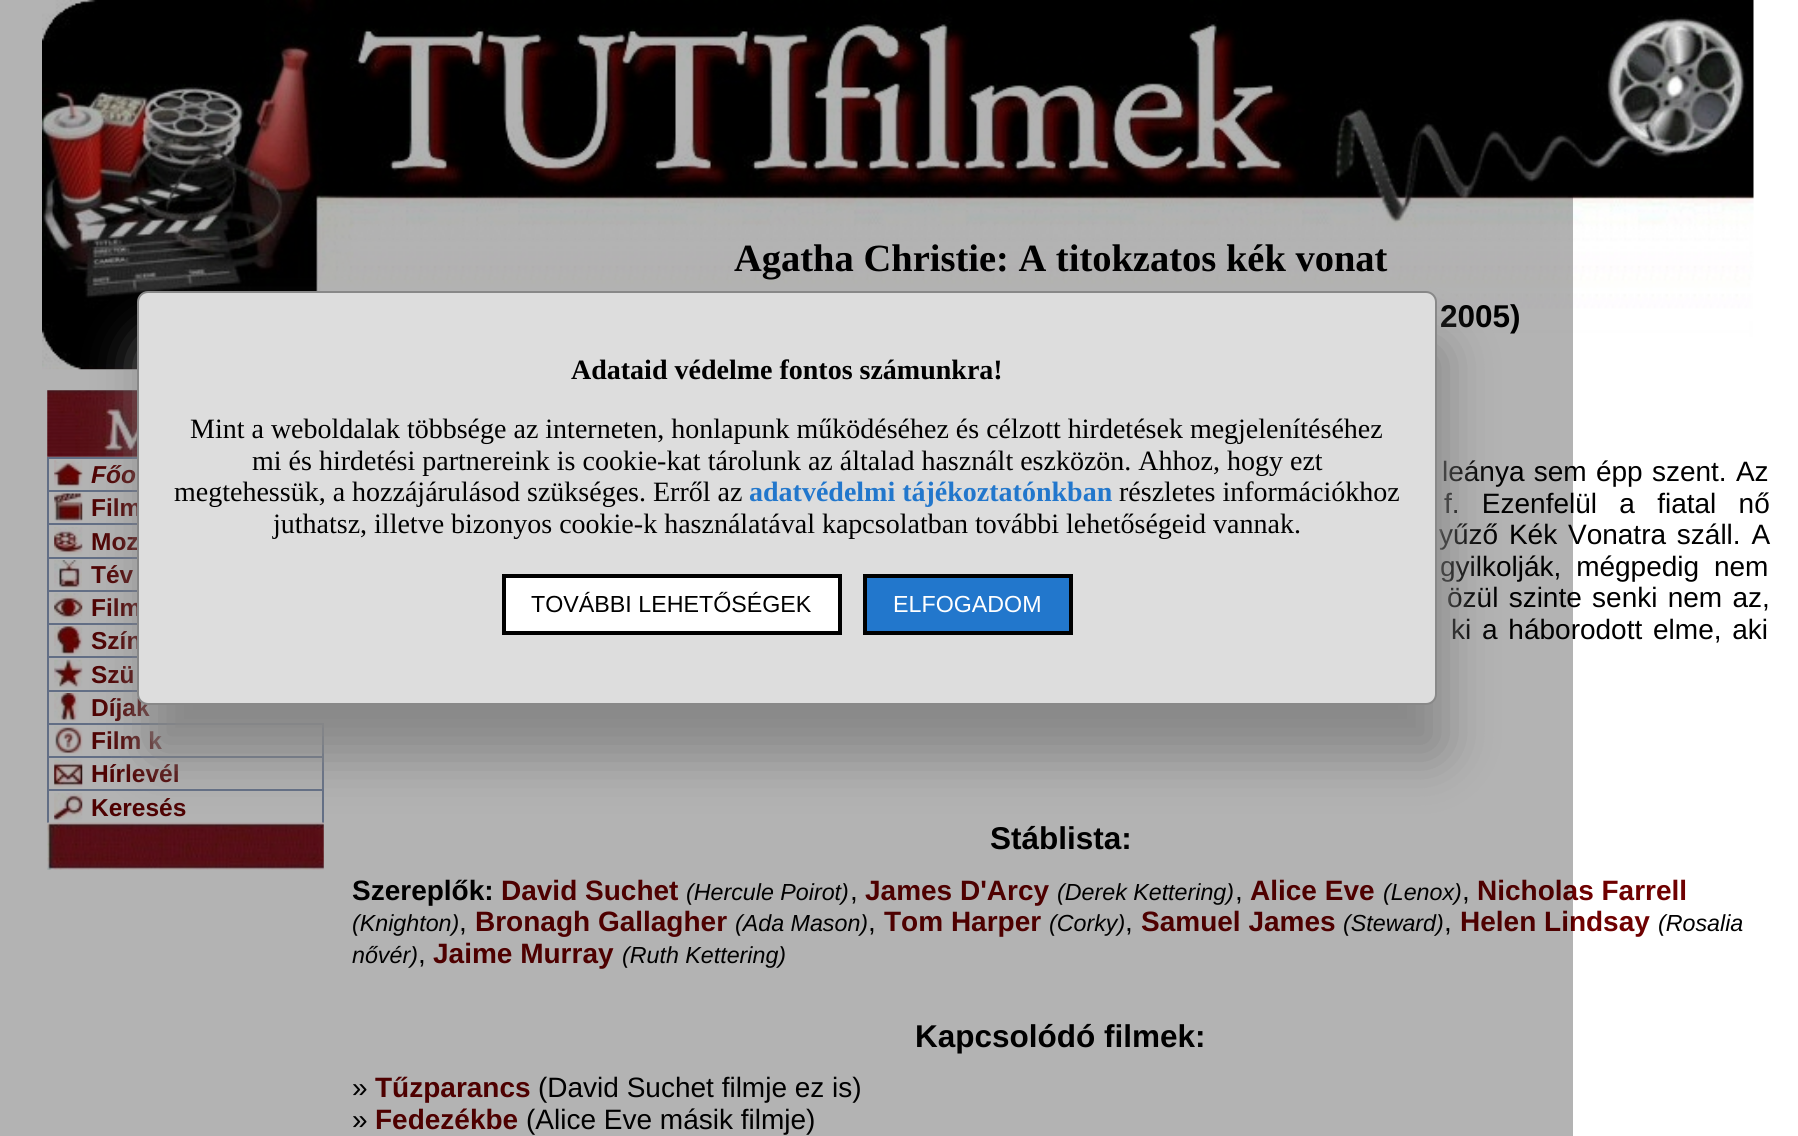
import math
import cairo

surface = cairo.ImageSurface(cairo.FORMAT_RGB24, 1798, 1136)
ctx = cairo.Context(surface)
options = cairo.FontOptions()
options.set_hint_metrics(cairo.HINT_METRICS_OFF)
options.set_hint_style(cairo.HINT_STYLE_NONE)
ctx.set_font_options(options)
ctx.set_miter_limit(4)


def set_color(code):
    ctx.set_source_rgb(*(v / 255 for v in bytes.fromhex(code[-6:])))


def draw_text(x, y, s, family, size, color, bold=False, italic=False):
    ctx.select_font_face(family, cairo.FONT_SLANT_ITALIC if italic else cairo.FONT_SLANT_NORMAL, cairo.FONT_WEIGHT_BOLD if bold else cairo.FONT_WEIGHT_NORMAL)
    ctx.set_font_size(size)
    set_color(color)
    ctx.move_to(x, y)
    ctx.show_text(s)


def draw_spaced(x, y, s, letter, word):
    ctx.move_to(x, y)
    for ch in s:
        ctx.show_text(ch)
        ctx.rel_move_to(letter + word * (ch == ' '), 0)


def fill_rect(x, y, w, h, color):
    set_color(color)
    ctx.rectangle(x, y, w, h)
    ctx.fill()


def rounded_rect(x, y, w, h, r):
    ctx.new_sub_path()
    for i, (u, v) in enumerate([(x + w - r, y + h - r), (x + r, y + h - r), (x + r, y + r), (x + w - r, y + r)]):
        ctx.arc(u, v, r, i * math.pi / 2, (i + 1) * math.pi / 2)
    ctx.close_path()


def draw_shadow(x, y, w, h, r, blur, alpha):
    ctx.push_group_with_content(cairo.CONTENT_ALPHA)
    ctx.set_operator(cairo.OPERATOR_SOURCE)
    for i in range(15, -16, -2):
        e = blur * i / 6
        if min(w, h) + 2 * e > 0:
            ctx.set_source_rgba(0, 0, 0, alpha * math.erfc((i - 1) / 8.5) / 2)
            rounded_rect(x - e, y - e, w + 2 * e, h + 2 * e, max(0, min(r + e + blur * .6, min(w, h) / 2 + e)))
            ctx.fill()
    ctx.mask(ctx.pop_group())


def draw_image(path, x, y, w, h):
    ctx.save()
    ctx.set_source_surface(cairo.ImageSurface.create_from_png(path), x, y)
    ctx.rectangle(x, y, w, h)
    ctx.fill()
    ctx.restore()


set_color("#ffffff")
ctx.paint()
draw_image("assets/img1.png", 42, 0, 1712, 370)
draw_image("assets/img2.png", 47, 390, 90, 67)
fill_rect(47, 457, 90, 2, "#8c9cbe")
fill_rect(47, 457, 2, 33, "#8c9cbe")
draw_image("assets/img3.png", 54, 460, 29, 28)
draw_text(91, 483, "Főo", "Liberation Sans", 24.5, "#6f0000", bold=True, italic=True)
fill_rect(47, 490, 90, 2, "#8c9cbe")
fill_rect(47, 490, 2, 33, "#8c9cbe")
draw_image("assets/img4.png", 54, 493, 29, 29)
draw_text(91, 516, "Film", "Liberation Sans", 24.5, "#6f0000", bold=True)
fill_rect(47, 523, 90, 2, "#8c9cbe")
fill_rect(47, 523, 2, 34, "#8c9cbe")
draw_image("assets/img5.png", 54, 527, 29, 28)
draw_text(91, 550, "Moz", "Liberation Sans", 24.5, "#6f0000", bold=True)
fill_rect(47, 557, 90, 2, "#8c9cbe")
fill_rect(47, 557, 2, 33, "#8c9cbe")
draw_image("assets/img6.png", 54, 560, 28, 28)
draw_text(91, 583, "Tév", "Liberation Sans", 24.5, "#6f0000", bold=True)
fill_rect(47, 590, 90, 2, "#8c9cbe")
fill_rect(47, 590, 2, 33, "#8c9cbe")
draw_image("assets/img7.png", 54, 593, 29, 28)
draw_text(91, 616, "Film", "Liberation Sans", 24.5, "#6f0000", bold=True)
fill_rect(47, 623, 90, 2, "#8c9cbe")
fill_rect(47, 623, 2, 33, "#8c9cbe")
draw_image("assets/img8.png", 54, 626, 29, 29)
draw_text(91, 649, "Szín", "Liberation Sans", 24.5, "#6f0000", bold=True)
fill_rect(47, 656, 90, 2, "#8c9cbe")
fill_rect(47, 656, 2, 34, "#8c9cbe")
draw_image("assets/img9.png", 54, 659, 29, 29)
draw_text(91, 683, "Szü", "Liberation Sans", 24.5, "#6f0000", bold=True)
fill_rect(47, 690, 90, 2, "#8c9cbe")
fill_rect(47, 690, 2, 33, "#8c9cbe")
draw_image("assets/img10.png", 54, 693, 25, 28)
draw_text(91, 716, "Díjak", "Liberation Sans", 24.5, "#6f0000", bold=True)
fill_rect(47, 723, 277, 2, "#8c9cbe")
fill_rect(322, 723, 2, 33, "#8c9cbe")
fill_rect(47, 723, 2, 33, "#8c9cbe")
draw_image("assets/img11.png", 54, 726, 29, 28)
draw_text(91, 749, "Film k", "Liberation Sans", 24.5, "#6f0000", bold=True)
fill_rect(47, 756, 277, 2, "#8c9cbe")
fill_rect(322, 756, 2, 33, "#8c9cbe")
fill_rect(47, 756, 2, 33, "#8c9cbe")
draw_image("assets/img12.png", 54, 759, 29, 29)
draw_text(91, 782, "Hírlevél", "Liberation Sans", 24.5, "#6f0000", bold=True)
fill_rect(47, 789, 277, 2, "#8c9cbe")
fill_rect(322, 789, 2, 34, "#8c9cbe")
fill_rect(47, 789, 2, 34, "#8c9cbe")
draw_image("assets/img13.png", 54, 793, 29, 28)
draw_text(91, 816, "Keresés", "Liberation Sans", 24.5, "#6f0000", bold=True)
draw_image("assets/img14.png", 47, 822, 277, 48)
draw_text(734, 271, "Agatha Christie: A titokzatos kék vonat", "Liberation Serif", 38.5, "#000000", bold=True)
draw_text(1440, 327, "2005)", "Liberation Sans", 31.5, "#000000", bold=True)
ctx.select_font_face("Liberation Sans")
ctx.set_font_size(28)
draw_spaced(1442, 481, "leánya sem épp szent. Az", 0, 1.5)
draw_spaced(1444, 513, "f. Ezenfelül a fiatal nő", 0, 14.5)
draw_spaced(1439, 544, "yűző Kék Vonatra száll. A", 0, 3)
draw_spaced(1440, 576, "gyilkolják, mégpedig nem", 0, 7)
draw_spaced(1447, 607, "özül szinte senki nem az,", 0, 2.5)
draw_spaced(1451, 639, "ki a háborodott elme, aki", 0, 3)
draw_text(990, 849, "Stáblista:", "Liberation Sans", 31.5, "#000000", bold=True)
draw_text(352, 900, "Szereplők:", "Liberation Sans", 28, "#000000", bold=True)
draw_text(501, 900, "David Suchet", "Liberation Sans", 28, "#6f0000", bold=True)
draw_text(686, 900, "(Hercule Poirot)", "Liberation Sans", 23.25, "#000000", italic=True)
draw_text(850, 900, ",", "Liberation Sans", 28, "#000000")
draw_text(865, 900, "James D'Arcy", "Liberation Sans", 28, "#6f0000", bold=True)
draw_text(1057, 900, "(Derek Kettering)", "Liberation Sans", 23.25, "#000000", italic=True)
draw_text(1235, 900, ",", "Liberation Sans", 28, "#000000")
draw_text(1250, 900, "Alice Eve", "Liberation Sans", 28, "#6f0000", bold=True)
draw_text(1383, 900, "(Lenox)", "Liberation Sans", 23.25, "#000000", italic=True)
draw_text(1462, 900, ",", "Liberation Sans", 28, "#000000")
draw_text(1477, 900, "Nicholas Farrell", "Liberation Sans", 28, "#6f0000", bold=True)
draw_text(352, 931, "(Knighton)", "Liberation Sans", 23.25, "#000000", italic=True)
draw_text(459, 931, ",", "Liberation Sans", 28, "#000000")
draw_text(475, 931, "Bronagh Gallagher", "Liberation Sans", 28, "#6f0000", bold=True)
draw_text(735, 931, "(Ada Mason)", "Liberation Sans", 23.25, "#000000", italic=True)
draw_text(868, 931, ",", "Liberation Sans", 28, "#000000")
draw_text(884, 931, "Tom Harper", "Liberation Sans", 28, "#6f0000", bold=True)
draw_text(1049, 931, "(Corky)", "Liberation Sans", 23.25, "#000000", italic=True)
draw_text(1125, 931, ",", "Liberation Sans", 28, "#000000")
draw_text(1141, 931, "Samuel James", "Liberation Sans", 28, "#6f0000", bold=True)
draw_text(1343, 931, "(Steward)", "Liberation Sans", 23.25, "#000000", italic=True)
draw_text(1444, 931, ",", "Liberation Sans", 28, "#000000")
draw_text(1460, 931, "Helen Lindsay", "Liberation Sans", 28, "#6f0000", bold=True)
draw_text(1658, 931, "(Rosalia", "Liberation Sans", 23.25, "#000000", italic=True)
draw_text(352, 963, "nővér)", "Liberation Sans", 23.25, "#000000", italic=True)
draw_text(418, 963, ",", "Liberation Sans", 28, "#000000")
draw_text(433, 963, "Jaime Murray", "Liberation Sans", 28, "#6f0000", bold=True)
draw_text(622, 963, "(Ruth Kettering)", "Liberation Sans", 23.25, "#000000", italic=True)
draw_text(915, 1047, "Kapcsolódó filmek:", "Liberation Sans", 31.5, "#000000", bold=True)
draw_text(352, 1097, "»", "Liberation Sans", 28, "#000000")
draw_text(375, 1097, "Tűzparancs", "Liberation Sans", 28, "#6f0000", bold=True)
draw_text(538, 1097, "(David Suchet filmje ez is)", "Liberation Sans", 28, "#000000")
draw_text(352, 1129, "»", "Liberation Sans", 28, "#000000")
draw_text(375, 1129, "Fedezékbe", "Liberation Sans", 28, "#6f0000", bold=True)
draw_text(526, 1129, "(Alice Eve másik filmje)", "Liberation Sans", 28, "#000000")
ctx.set_source_rgba(0, 0, 0, 0.3)
ctx.rectangle(0, 0, 1573, 1136)
ctx.fill()
set_color("#888888")
draw_shadow(145, 343, 1301, 415, 11, 26, 1)
set_color("#dddddd")
rounded_rect(138, 292, 1298, 412, 10)
ctx.fill_preserve()
set_color("#888888")
ctx.stroke()
draw_text(571, 379, "Adataid védelme fontos számunkra!", "Liberation Serif", 28, "#000000", bold=True)
draw_text(190, 438, "Mint a weboldalak többsége az interneten, honlapunk működéséhez és célzott hirdetések megjelenítéséhez", "Liberation Serif", 28, "#000000")
draw_text(252, 470, "mi és hirdetési partnereink is cookie-kat tárolunk az általad használt eszközön. Ahhoz, hogy ezt", "Liberation Serif", 28, "#000000")
draw_text(174, 501, "megtehessük, a hozzájárulásod szükséges. Erről az", "Liberation Serif", 28, "#000000")
draw_text(749, 501, "adatvédelmi tájékoztatónkban", "Liberation Serif", 28, "#2277cc", bold=True)
draw_text(1119, 501, "részletes információkhoz", "Liberation Serif", 28, "#000000")
draw_text(273, 533, "juthatsz, illetve bizonyos cookie-k használatával kapcsolatban további lehetőségeid vannak.", "Liberation Serif", 28, "#000000")
set_color("#ffffff")
ctx.rectangle(504, 576, 336, 57)
ctx.fill_preserve()
set_color("#000000")
ctx.set_line_width(4)
ctx.stroke()
draw_text(531, 612, "TOVÁBBI LEHETŐSÉGEK", "Liberation Sans", 23.25, "#000000")
set_color("#2277cc")
ctx.rectangle(865, 576, 206, 57)
ctx.fill_preserve()
set_color("#000000")
ctx.stroke()
draw_text(893, 612, "ELFOGADOM", "Liberation Sans", 23.25, "#ffffff")
surface.write_to_png("output.png")
